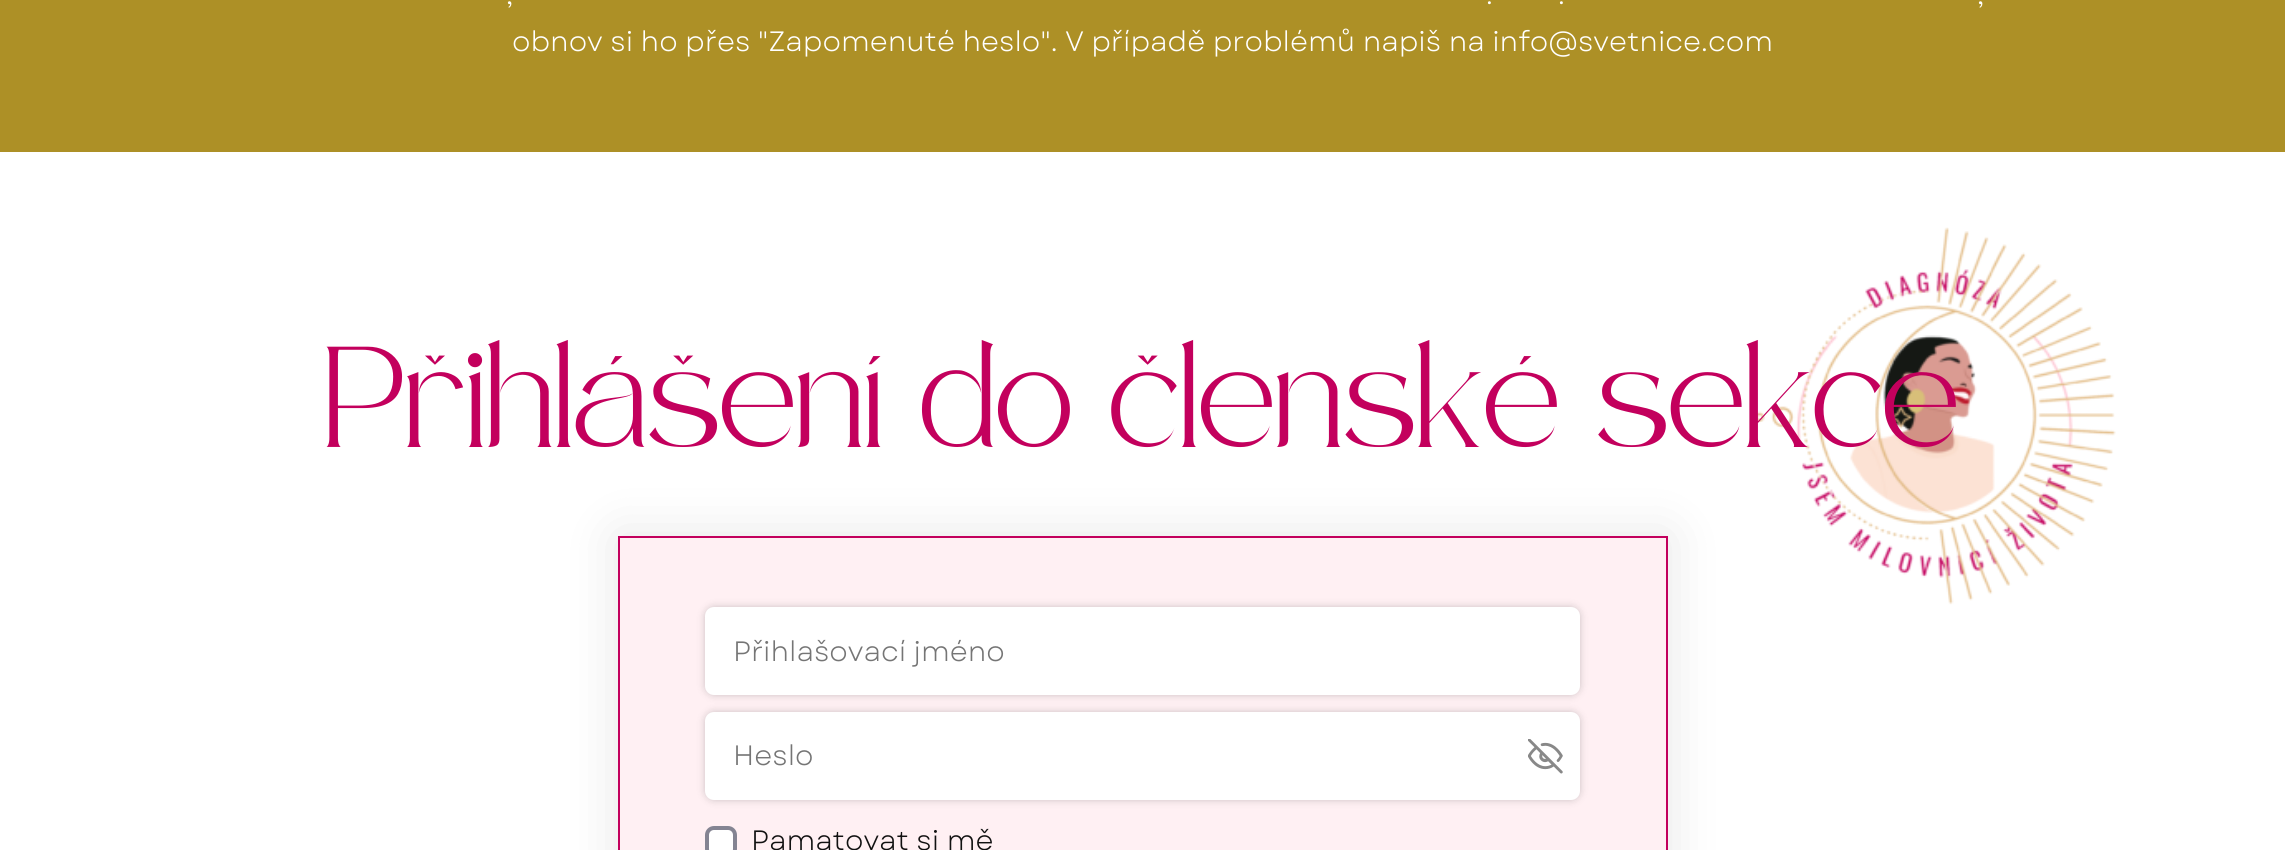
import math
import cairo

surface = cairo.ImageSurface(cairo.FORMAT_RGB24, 2285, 850)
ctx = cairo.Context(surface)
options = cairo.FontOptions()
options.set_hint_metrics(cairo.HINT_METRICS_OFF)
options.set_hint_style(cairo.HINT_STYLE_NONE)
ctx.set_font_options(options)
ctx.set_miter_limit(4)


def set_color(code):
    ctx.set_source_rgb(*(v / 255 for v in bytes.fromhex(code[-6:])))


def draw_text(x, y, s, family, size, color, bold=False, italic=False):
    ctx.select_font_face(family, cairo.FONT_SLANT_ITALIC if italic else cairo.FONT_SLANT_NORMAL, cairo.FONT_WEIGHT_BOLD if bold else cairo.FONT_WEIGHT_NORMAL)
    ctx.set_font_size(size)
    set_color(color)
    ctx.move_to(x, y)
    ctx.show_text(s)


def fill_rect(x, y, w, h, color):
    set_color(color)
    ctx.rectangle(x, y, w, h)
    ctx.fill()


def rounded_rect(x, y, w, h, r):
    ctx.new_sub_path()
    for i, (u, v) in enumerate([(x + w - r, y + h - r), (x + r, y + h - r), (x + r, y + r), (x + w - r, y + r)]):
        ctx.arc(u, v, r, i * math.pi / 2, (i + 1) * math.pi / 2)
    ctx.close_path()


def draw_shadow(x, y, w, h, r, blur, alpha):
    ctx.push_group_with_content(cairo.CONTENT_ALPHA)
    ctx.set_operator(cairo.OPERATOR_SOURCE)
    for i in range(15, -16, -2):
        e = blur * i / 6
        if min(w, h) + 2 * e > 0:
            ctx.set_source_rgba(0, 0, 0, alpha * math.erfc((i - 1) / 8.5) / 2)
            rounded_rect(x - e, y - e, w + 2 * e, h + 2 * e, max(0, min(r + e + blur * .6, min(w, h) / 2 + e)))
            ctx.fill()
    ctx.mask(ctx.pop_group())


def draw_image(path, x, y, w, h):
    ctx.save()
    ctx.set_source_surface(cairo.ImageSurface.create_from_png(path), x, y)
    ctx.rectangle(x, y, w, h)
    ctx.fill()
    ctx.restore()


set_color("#ffffff")
ctx.paint()
fill_rect(0, 0, 2285, 152, "#ad9026")
draw_text(506, 4, ",", "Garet", 28, "#ffffff")
draw_text(1486, 4, ".", "Garet", 28, "#ffffff")
draw_text(1558, 4, ".", "Garet", 28, "#ffffff")
draw_text(1977, 4, ",", "Garet", 28, "#ffffff")
draw_text(512, 51, "obnov si ho přes \"Zapomenuté heslo\". V případě problémů napiš na info@svetnice.com", "Garet", 28, "#ffffff")
draw_image("assets/img1.png", 1754, 227, 362, 378)
draw_text(324, 447, "Přihlášení do členské sekce", "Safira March", 70, "#c3005d")
set_color("#000000")
draw_shadow(618, 536, 1050, 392, 0, 26, 0.1)
set_color("#fff0f3")
ctx.rectangle(619, 537, 1048, 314)
ctx.fill_preserve()
set_color("#c3005d")
ctx.stroke()
set_color("#000000")
draw_shadow(705, 607, 875, 88, 9, 4, 0.2)
set_color("#ffffff")
rounded_rect(705, 607, 875, 88, 9)
ctx.fill()
draw_text(733, 661, "Přihlašovací jméno", "Garet", 28, "#757575")
set_color("#000000")
draw_shadow(705, 712, 875, 88, 9, 4, 0.2)
set_color("#ffffff")
rounded_rect(705, 712, 875, 88, 9)
ctx.fill()
draw_text(733, 765, "Heslo", "Garet", 28, "#757575")
draw_image("assets/img2.png", 1528, 739, 35, 35)
set_color("#ffffff")
rounded_rect(707, 828, 28, 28, 7)
ctx.fill_preserve()
set_color("#848492")
ctx.set_line_width(4)
ctx.stroke()
draw_text(751, 850, "Pamatovat si mě", "Garet", 28, "#111111")
surface.write_to_png("output.png")
